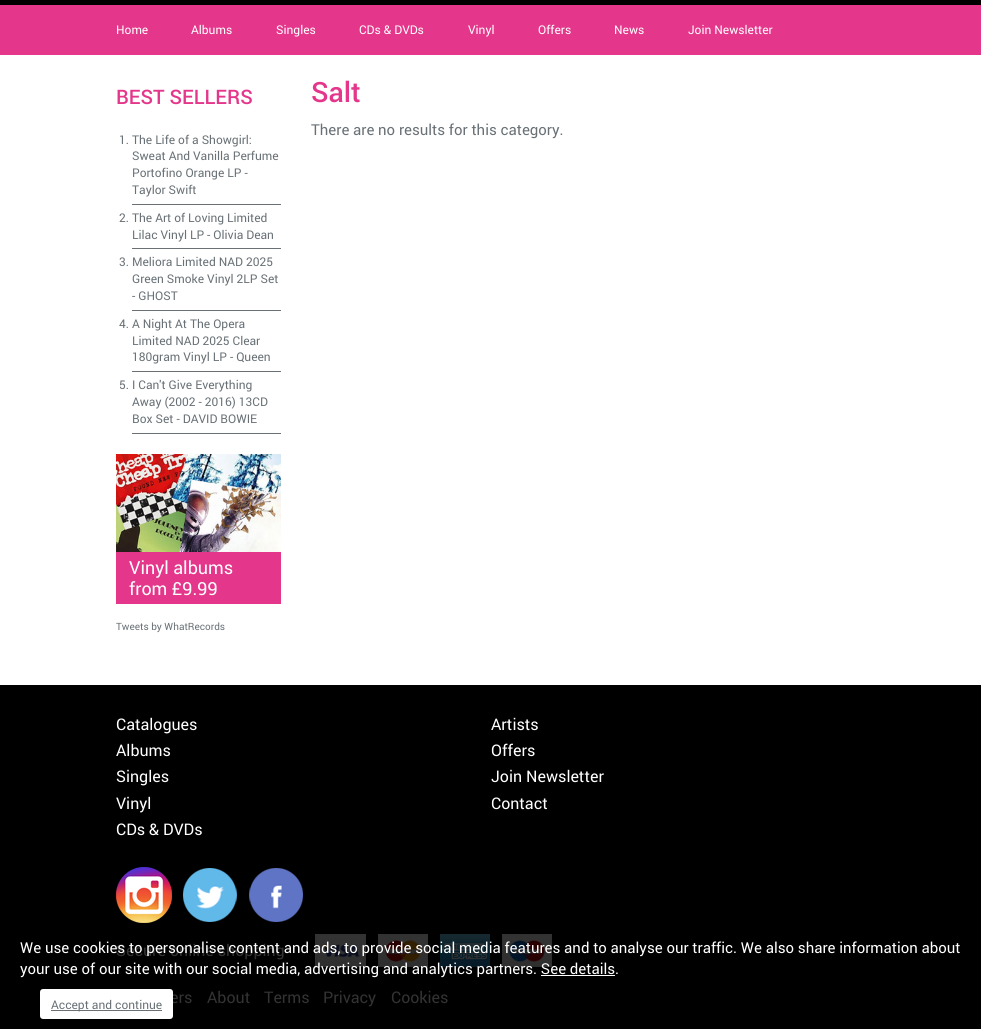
import math
import cairo

surface = cairo.ImageSurface(cairo.FORMAT_RGB24, 981, 1029)
ctx = cairo.Context(surface)
options = cairo.FontOptions()
options.set_hint_metrics(cairo.HINT_METRICS_OFF)
options.set_hint_style(cairo.HINT_STYLE_NONE)
ctx.set_font_options(options)
ctx.set_miter_limit(4)


def set_color(code):
    ctx.set_source_rgb(*(v / 255 for v in bytes.fromhex(code[-6:])))


def draw_text(x, y, s, family, size, color, bold=False, italic=False):
    ctx.select_font_face(family, cairo.FONT_SLANT_ITALIC if italic else cairo.FONT_SLANT_NORMAL, cairo.FONT_WEIGHT_BOLD if bold else cairo.FONT_WEIGHT_NORMAL)
    ctx.set_font_size(size)
    set_color(color)
    ctx.move_to(x, y)
    ctx.show_text(s)


def fill_rect(x, y, w, h, color):
    set_color(color)
    ctx.rectangle(x, y, w, h)
    ctx.fill()


def rounded_rect(x, y, w, h, r):
    ctx.new_sub_path()
    for i, (u, v) in enumerate([(x + w - r, y + h - r), (x + r, y + h - r), (x + r, y + r), (x + w - r, y + r)]):
        ctx.arc(u, v, r, i * math.pi / 2, (i + 1) * math.pi / 2)
    ctx.close_path()


def draw_image(path, x, y, w, h):
    ctx.save()
    ctx.set_source_surface(cairo.ImageSurface.create_from_png(path), x, y)
    ctx.rectangle(x, y, w, h)
    ctx.fill()
    ctx.restore()


set_color("#ffffff")
ctx.paint()
fill_rect(0, 0, 981, 5, "#000000")
fill_rect(0, 5, 981, 50, "#e4378b")
draw_text(116, 34, "Home", "Roboto", 12, "#ffffff")
draw_text(191, 34, "Albums", "Roboto", 12, "#ffffff")
draw_text(276, 34, "Singles", "Roboto", 12, "#ffffff")
draw_text(359, 34, "CDs & DVDs", "Roboto", 12, "#ffffff")
draw_text(468, 34, "Vinyl", "Roboto", 12, "#ffffff")
draw_text(538, 34, "Offers", "Roboto", 12, "#ffffff")
draw_text(614, 34, "News", "Roboto", 12, "#ffffff")
draw_text(688, 34, "Join Newsletter", "Roboto", 12, "#ffffff")
draw_text(116, 104, "BEST SELLERS", "Roboto Medium", 20, "#e4378b")
fill_rect(132, 204, 149, 1, "#697176")
draw_text(119, 144, "1. The Life of a Showgirl:", "Roboto", 12, "#697176")
draw_text(132, 160, "Sweat And Vanilla Perfume", "Roboto", 12, "#697176")
draw_text(132, 177, "Portofino Orange LP -", "Roboto", 12, "#697176")
draw_text(132, 194, "Taylor Swift", "Roboto", 12, "#697176")
fill_rect(132, 248, 149, 1, "#697176")
draw_text(119, 222, "2. The Art of Loving Limited", "Roboto", 12, "#697176")
draw_text(132, 239, "Lilac Vinyl LP - Olivia Dean", "Roboto", 12, "#697176")
fill_rect(132, 310, 149, 1, "#697176")
draw_text(119, 266, "3. Meliora Limited NAD 2025", "Roboto", 12, "#697176")
draw_text(132, 283, "Green Smoke Vinyl 2LP Set", "Roboto", 12, "#697176")
draw_text(132, 300, "- GHOST", "Roboto", 12, "#697176")
fill_rect(132, 371, 149, 1, "#697176")
draw_text(119, 328, "4. A Night At The Opera", "Roboto", 12, "#697176")
draw_text(132, 345, "Limited NAD 2025 Clear", "Roboto", 12, "#697176")
draw_text(132, 361, "180gram Vinyl LP - Queen", "Roboto", 12, "#697176")
fill_rect(132, 433, 149, 1, "#697176")
draw_text(119, 389, "5. I Can't Give Everything", "Roboto", 12, "#697176")
draw_text(132, 406, "Away (2002 - 2016) 13CD", "Roboto", 12, "#697176")
draw_text(132, 423, "Box Set - DAVID BOWIE", "Roboto", 12, "#697176")
draw_image("assets/img1.png", 116, 454, 165, 98)
fill_rect(116, 552, 165, 52, "#e4378b")
draw_text(129, 574, "Vinyl albums", "Roboto", 18, "#ffffff")
draw_text(129, 595, "from £9.99", "Roboto", 18, "#ffffff")
draw_text(116, 630, "Tweets by WhatRecords", "Roboto", 10, "#697176")
draw_text(311, 102, "Salt", "Roboto Medium", 28, "#e4378b")
draw_text(311, 135, "There are no results for this category.", "Roboto", 15, "#697176")
fill_rect(0, 685, 981, 344, "#000000")
draw_text(116, 730, "Catalogues", "Roboto", 16, "#ffffff")
draw_text(116, 756, "Albums", "Roboto", 16, "#ffffff")
draw_text(116, 782, "Singles", "Roboto", 16, "#ffffff")
draw_text(116, 809, "Vinyl", "Roboto", 16, "#ffffff")
draw_text(116, 835, "CDs & DVDs", "Roboto", 16, "#ffffff")
draw_text(491, 730, "Artists", "Roboto", 16, "#ffffff")
draw_text(491, 756, "Offers", "Roboto", 16, "#ffffff")
draw_text(491, 782, "Join Newsletter", "Roboto", 16, "#ffffff")
draw_text(491, 809, "Contact", "Roboto", 16, "#ffffff")
draw_image("assets/img2.png", 116, 867, 56, 56)
draw_image("assets/img3.png", 183, 868, 54, 54)
draw_image("assets/img4.png", 249, 868, 54, 54)
draw_text(116, 956, "Secure online shopping", "Roboto", 16, "#333333")
draw_image("assets/img5.png", 315, 934, 237, 33)
draw_text(170, 1003, "ers", "Roboto", 16, "#333333")
draw_text(207, 1003, "About", "Roboto", 16, "#333333")
draw_text(264, 1003, "Terms", "Roboto", 16, "#333333")
draw_text(323, 1003, "Privacy", "Roboto", 16, "#333333")
draw_text(391, 1003, "Cookies", "Roboto", 16, "#333333")
draw_text(20, 953, "We use cookies to personalise content and ads, to provide social media features and to analyse our traffic. We also share information about", "Roboto", 15, "#ffffff")
draw_text(20, 974, "your use of our site with our social media, advertising and analytics partners. See details.", "Roboto", 15, "#ffffff")
fill_rect(541, 975, 74, 1, "#ffffff")
rounded_rect(40, 989, 133, 30, 3)
ctx.fill()
fill_rect(51, 1010, 111, 1, "#697176")
draw_text(51, 1009, "Accept and continue", "Roboto", 12, "#697176")
surface.write_to_png("output.png")
